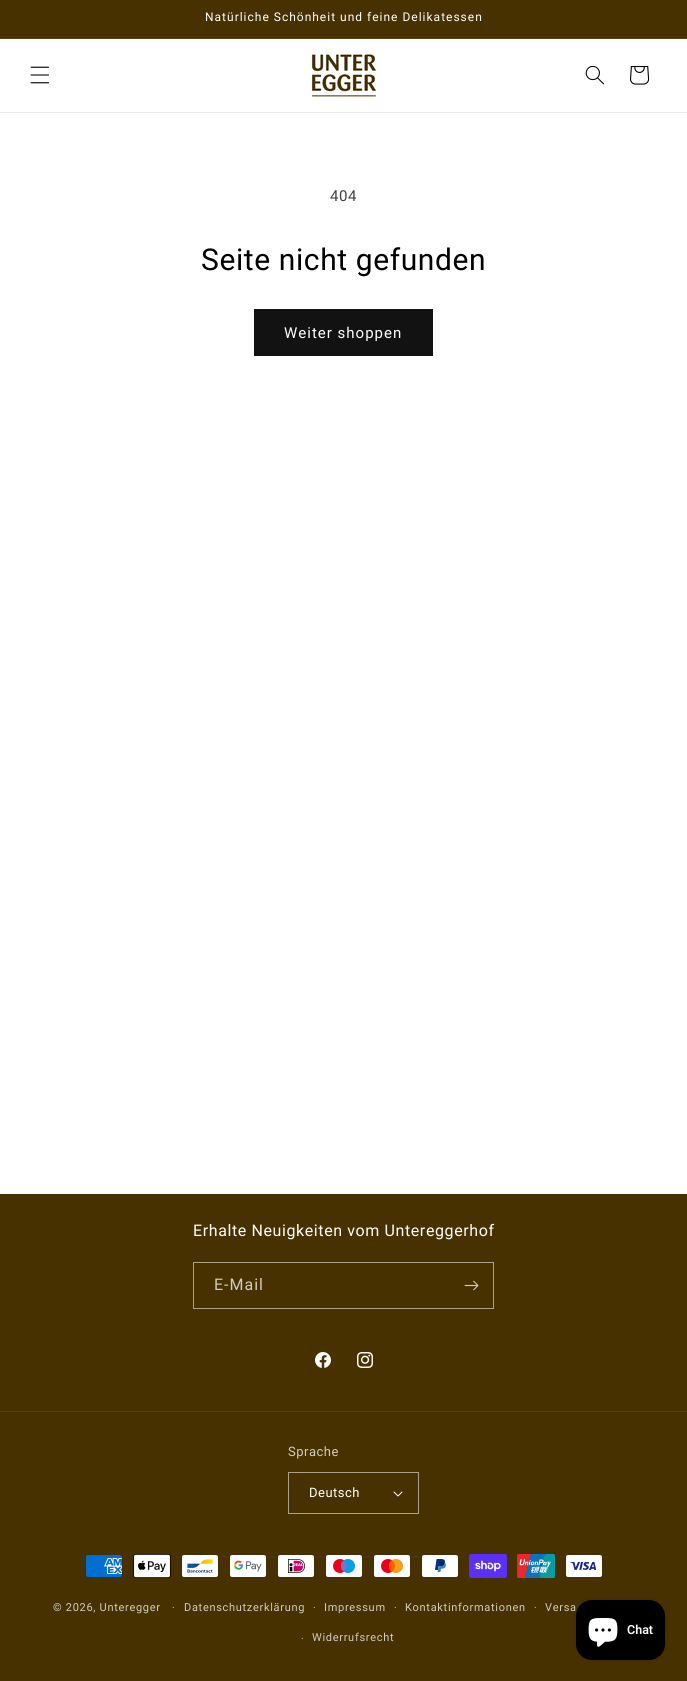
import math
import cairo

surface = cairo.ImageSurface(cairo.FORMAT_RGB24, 687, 1681)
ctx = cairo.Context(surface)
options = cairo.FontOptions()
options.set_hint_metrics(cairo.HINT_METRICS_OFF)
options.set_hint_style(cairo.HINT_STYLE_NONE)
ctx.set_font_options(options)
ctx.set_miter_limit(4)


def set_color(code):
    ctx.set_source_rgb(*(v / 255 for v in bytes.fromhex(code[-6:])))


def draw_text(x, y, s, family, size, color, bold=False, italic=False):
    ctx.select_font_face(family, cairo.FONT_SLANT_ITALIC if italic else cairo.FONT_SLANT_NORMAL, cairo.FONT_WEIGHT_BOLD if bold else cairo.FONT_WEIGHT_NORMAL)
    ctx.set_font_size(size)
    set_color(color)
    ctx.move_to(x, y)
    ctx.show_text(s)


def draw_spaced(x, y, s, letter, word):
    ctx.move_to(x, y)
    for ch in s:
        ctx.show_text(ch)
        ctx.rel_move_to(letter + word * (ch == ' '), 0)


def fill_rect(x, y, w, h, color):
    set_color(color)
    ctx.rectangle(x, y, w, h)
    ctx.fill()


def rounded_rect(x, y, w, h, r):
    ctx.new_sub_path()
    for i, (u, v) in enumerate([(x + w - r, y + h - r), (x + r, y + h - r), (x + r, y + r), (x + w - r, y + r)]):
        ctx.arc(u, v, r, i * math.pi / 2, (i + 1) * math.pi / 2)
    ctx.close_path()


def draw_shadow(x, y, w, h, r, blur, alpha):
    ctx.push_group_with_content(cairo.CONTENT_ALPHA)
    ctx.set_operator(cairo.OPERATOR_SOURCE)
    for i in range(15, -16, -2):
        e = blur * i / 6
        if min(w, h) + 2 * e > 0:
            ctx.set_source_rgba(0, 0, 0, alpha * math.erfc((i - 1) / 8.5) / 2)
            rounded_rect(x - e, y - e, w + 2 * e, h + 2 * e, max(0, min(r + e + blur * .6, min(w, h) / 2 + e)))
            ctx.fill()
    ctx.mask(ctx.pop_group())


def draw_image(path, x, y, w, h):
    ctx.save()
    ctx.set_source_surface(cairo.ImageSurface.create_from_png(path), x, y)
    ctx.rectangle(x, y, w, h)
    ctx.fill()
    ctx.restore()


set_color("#ffffff")
ctx.paint()
fill_rect(0, 0, 687, 38, "#473100")
fill_rect(0, 38, 687, 1, "#564114")
ctx.select_font_face("Roboto")
ctx.set_font_size(12)
set_color("#ffffff")
draw_spaced(205, 21, "Natürliche Schönheit und feine Delikatessen", 1, 0)
fill_rect(0, 112, 687, 1, "#ebebeb")
draw_image("assets/img1.png", 30, 66, 20, 18)
draw_image("assets/img2.png", 309, 51, 70, 48)
draw_image("assets/img3.png", 585, 65, 19, 20)
draw_image("assets/img4.png", 630, 66, 20, 19)
ctx.set_font_size(15)
set_color("#404040")
draw_spaced(330, 201, "404", 0.6, 0)
ctx.set_font_size(30)
set_color("#000000")
draw_spaced(201, 270, "Seite nicht gefunden", 0.6, 0)
fill_rect(254, 309, 179, 47, "#121212")
ctx.set_font_size(15)
set_color("#ffffff")
draw_spaced(284, 338, "Weiter shoppen", 1, 0)
fill_rect(0, 1194, 687, 487, "#473100")
ctx.set_font_size(16)
set_color("#ffffff")
draw_spaced(193, 1236, "Erhalte Neuigkeiten vom Untereggerhof", 0.6, 0)
ctx.rectangle(193.5, 1262.5, 300, 46)
set_color("#aca28c")
ctx.set_line_width(1)
ctx.stroke()
set_color("#d1ccbf")
draw_spaced(214, 1290, "E-Mail", 1, 0)
draw_image("assets/img5.png", 464, 1280, 15, 11)
draw_image("assets/img6.png", 315, 1352, 16, 16)
draw_image("assets/img7.png", 357, 1352, 16, 16)
fill_rect(0, 1411, 687, 1, "#564114")
ctx.set_font_size(13)
set_color("#d1ccbf")
draw_spaced(288, 1456, "Sprache", 0.5, 0)
draw_image("assets/img8.png", 393, 1491, 10, 6)
ctx.rectangle(288.5, 1472.5, 130, 41)
set_color("#aca28c")
ctx.stroke()
set_color("#ffffff")
draw_spaced(309, 1497, "Deutsch", 0.5, 0)
draw_image("assets/img9.png", 85, 1554, 38, 24)
draw_image("assets/img10.png", 133, 1554, 38, 24)
draw_image("assets/img11.png", 181, 1554, 38, 24)
draw_image("assets/img12.png", 229, 1554, 38, 24)
draw_image("assets/img13.png", 277, 1554, 38, 24)
draw_image("assets/img14.png", 325, 1554, 38, 24)
draw_image("assets/img15.png", 373, 1554, 38, 24)
draw_image("assets/img16.png", 421, 1554, 38, 24)
draw_image("assets/img17.png", 469, 1554, 38, 24)
draw_image("assets/img18.png", 517, 1554, 38, 24)
draw_image("assets/img19.png", 565, 1554, 38, 24)
ctx.set_font_size(11)
set_color("#d1ccbf")
draw_spaced(53, 1611, "© 2026, Unteregger", 0.7, 0)
ctx.set_font_size(10)
draw_spaced(172, 1611, "·", 0.7, 0)
ctx.set_font_size(11)
draw_spaced(184, 1611, "Datenschutzerklärung", 0.7, 0)
ctx.set_font_size(10)
draw_spaced(313, 1611, "·", 0.7, 0)
ctx.set_font_size(11)
draw_spaced(324, 1611, "Impressum", 0.7, 0)
ctx.set_font_size(10)
draw_spaced(394, 1611, "·", 0.7, 0)
ctx.set_font_size(11)
draw_spaced(405, 1611, "Kontaktinformationen", 0.7, 0)
ctx.set_font_size(10)
draw_spaced(534, 1611, "·", 0.7, 0)
ctx.set_font_size(11)
draw_spaced(545, 1611, "Versa", 0.7, 0)
ctx.set_font_size(10)
draw_spaced(301, 1642, "·", 0.7, 0)
ctx.set_font_size(11)
draw_spaced(312, 1641, "Widerrufsrecht", 0.7, 0)
set_color("#000000")
draw_shadow(576, 1600, 89, 60, 16, 2.5, 0.15)
set_color("#000000")
rounded_rect(576, 1600, 89, 60, 16)
ctx.fill()
draw_image("assets/img20.png", 588, 1618, 30, 29)
draw_text(627, 1634, "Chat", "Roboto SemiBold", 12.5, "#ffffff")
surface.write_to_png("output.png")
